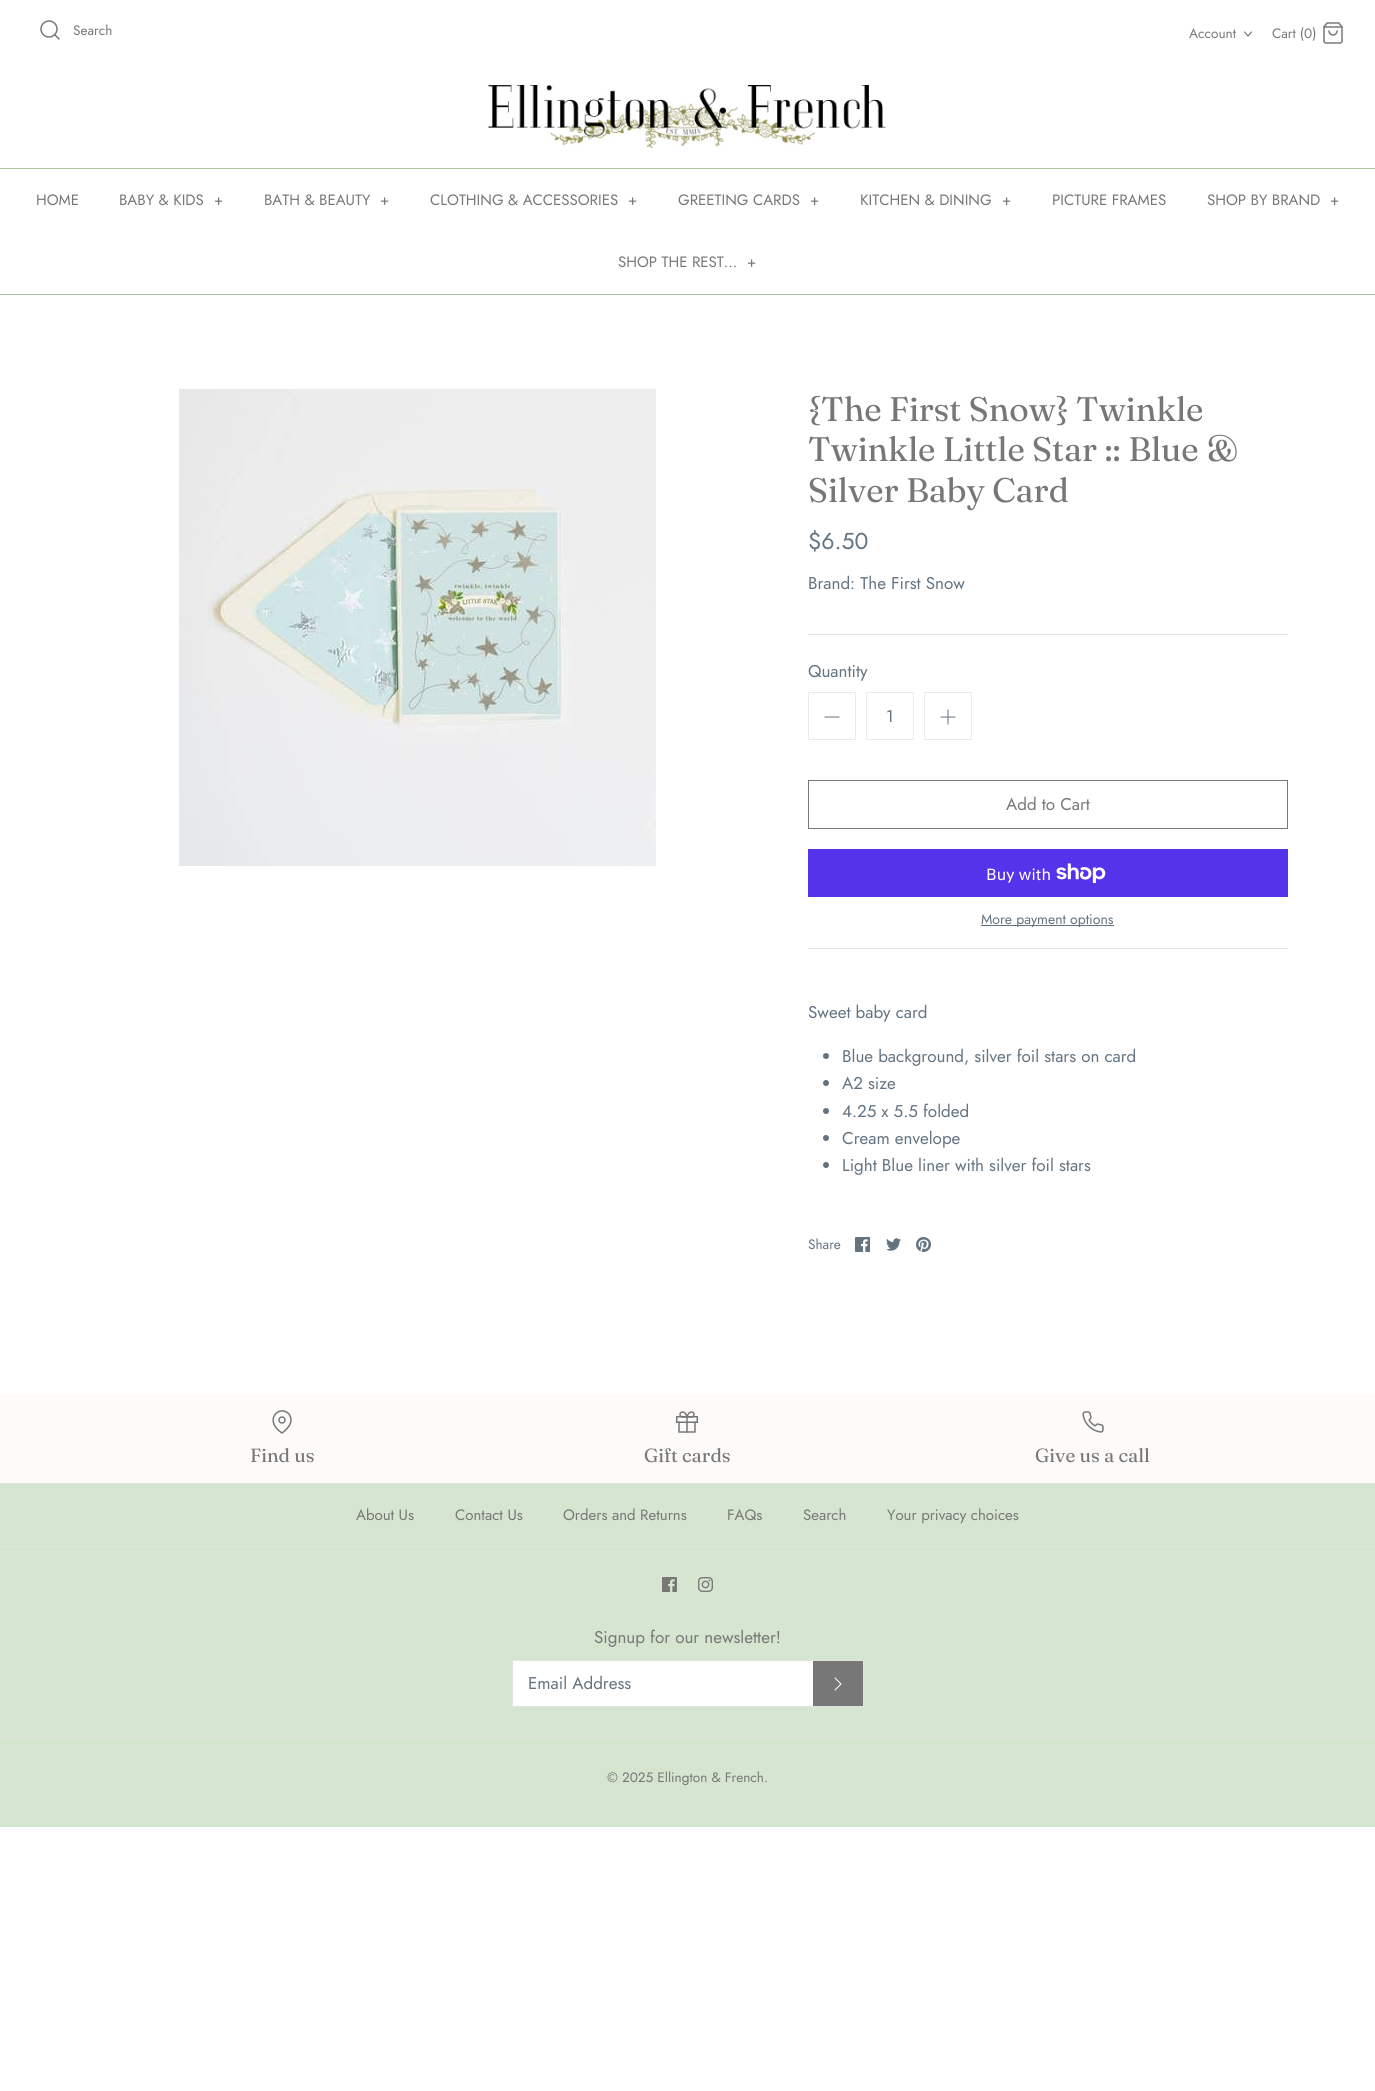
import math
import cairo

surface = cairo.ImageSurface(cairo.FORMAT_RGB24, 1375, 2091)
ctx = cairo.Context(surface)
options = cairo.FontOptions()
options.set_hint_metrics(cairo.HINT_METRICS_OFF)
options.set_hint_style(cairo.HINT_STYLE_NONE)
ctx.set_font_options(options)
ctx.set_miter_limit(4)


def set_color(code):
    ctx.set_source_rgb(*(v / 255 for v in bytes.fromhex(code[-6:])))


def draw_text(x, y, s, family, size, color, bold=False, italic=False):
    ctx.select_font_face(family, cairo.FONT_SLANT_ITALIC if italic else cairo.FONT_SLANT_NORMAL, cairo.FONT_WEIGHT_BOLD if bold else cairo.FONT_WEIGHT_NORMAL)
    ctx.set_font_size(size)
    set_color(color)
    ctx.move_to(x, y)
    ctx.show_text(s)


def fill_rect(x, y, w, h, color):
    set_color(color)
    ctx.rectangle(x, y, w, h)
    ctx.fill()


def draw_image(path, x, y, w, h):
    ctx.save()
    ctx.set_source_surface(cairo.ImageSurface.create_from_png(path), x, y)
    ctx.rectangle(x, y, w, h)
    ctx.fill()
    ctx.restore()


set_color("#ffffff")
ctx.paint()
ctx.arc(49, 29, 8, 0, 2 * math.pi)
set_color("#777777")
ctx.set_line_width(1.5)
ctx.stroke()
ctx.new_path()
ctx.move_to(59, 39)
ctx.line_to(54.5, 34.5)
ctx.set_line_cap(cairo.LINE_CAP_ROUND)
ctx.set_line_join(cairo.LINE_JOIN_ROUND)
ctx.stroke()
draw_text(73, 35, "Search", "Jost", 13.6, "#777777")
draw_text(1189, 38, "Account", "Jost", 13.6, "#777777")
ctx.new_path()
ctx.move_to(1244.5, 32)
ctx.line_to(1248, 36)
ctx.line_to(1251.5, 32)
ctx.set_line_width(1.2)
ctx.stroke()
draw_text(1272, 38, "Cart (0)", "Jost", 13.6, "#777777")
draw_image("assets/img1.png", 1323, 22, 20, 22)
draw_image("assets/img2.png", 487, 85, 399, 63)
fill_rect(0, 294, 1375, 1, "#acc59e")
fill_rect(0, 168, 1375, 1, "#acc59e")
draw_text(36, 205, "HOME", "Jost", 15, "#777777")
draw_text(119, 205, "BABY & KIDS", "Jost", 15, "#777777")
draw_text(214, 205, "+", "Jost", 15, "#777777")
draw_text(264, 205, "BATH & BEAUTY", "Jost", 15, "#777777")
draw_text(380, 205, "+", "Jost", 15, "#777777")
draw_text(430, 205, "CLOTHING & ACCESSORIES", "Jost", 15, "#777777")
draw_text(628, 205, "+", "Jost", 15, "#777777")
draw_text(678, 205, "GREETING CARDS", "Jost", 15, "#777777")
draw_text(810, 205, "+", "Jost", 15, "#777777")
draw_text(860, 205, "KITCHEN & DINING", "Jost", 15, "#777777")
draw_text(1002, 205, "+", "Jost", 15, "#777777")
draw_text(1052, 205, "PICTURE FRAMES", "Jost", 15, "#777777")
draw_text(1207, 205, "SHOP BY BRAND", "Jost", 15, "#777777")
draw_text(1330, 205, "+", "Jost", 15, "#777777")
draw_text(618, 267, "SHOP THE REST...", "Jost", 15, "#777777")
draw_text(747, 267, "+", "Jost", 15, "#777777")
draw_image("assets/img3.png", 179, 389, 477, 477)
fill_rect(808, 634, 480, 1, "#e2e2e2")
draw_text(808, 421, "{The First Snow} Twinkle", "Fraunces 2", 34, "#777777")
draw_text(808, 461, "Twinkle Little Star :: Blue &", "Fraunces 2", 34, "#777777")
draw_text(808, 502, "Silver Baby Card", "Fraunces 2", 34, "#777777")
draw_text(808, 549, "$6.50", "Jost", 23, "#637381")
draw_text(808, 589, "Brand: The First Snow", "Jost", 17, "#637381")
fill_rect(808, 948, 480, 1, "#e2e2e2")
draw_text(808, 677, "Quantity", "Jost", 17, "#637381")
ctx.rectangle(808.5, 692.5, 47, 47)
set_color("#e8eaec")
ctx.set_line_width(1)
ctx.set_line_cap(cairo.LINE_CAP_BUTT)
ctx.set_line_join(cairo.LINE_JOIN_MITER)
ctx.stroke()
ctx.new_path()
ctx.move_to(825, 717)
ctx.line_to(839, 717)
set_color("#637381")
ctx.set_line_cap(cairo.LINE_CAP_ROUND)
ctx.set_line_join(cairo.LINE_JOIN_ROUND)
ctx.stroke()
ctx.rectangle(866.5, 692.5, 47, 47)
set_color("#e8eaec")
ctx.set_line_cap(cairo.LINE_CAP_BUTT)
ctx.set_line_join(cairo.LINE_JOIN_MITER)
ctx.stroke()
draw_text(886, 722, "1", "Jost", 17, "#637381")
ctx.rectangle(924.5, 692.5, 47, 47)
set_color("#e8eaec")
ctx.stroke()
ctx.new_path()
ctx.move_to(948, 710)
ctx.line_to(948, 724)
ctx.move_to(941, 717)
ctx.line_to(955, 717)
set_color("#637381")
ctx.set_line_cap(cairo.LINE_CAP_ROUND)
ctx.set_line_join(cairo.LINE_JOIN_ROUND)
ctx.stroke()
ctx.rectangle(808.5, 780.5, 479, 48)
set_color("#777777")
ctx.set_line_cap(cairo.LINE_CAP_BUTT)
ctx.set_line_join(cairo.LINE_JOIN_MITER)
ctx.stroke()
draw_text(1006, 810, "Add to Cart", "Jost", 17, "#777777")
fill_rect(808, 849, 480, 48, "#5433eb")
draw_text(986, 880, "Buy with", "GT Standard", 16, "#ffffff")
draw_image("assets/img4.png", 1056, 863, 50, 20)
fill_rect(981, 925, 133, 1, "#637381")
draw_text(981, 924, "More payment options", "Jost", 14, "#637381")
draw_text(808, 1018, "Sweet baby card", "Jost", 17, "#637381")
ctx.new_path()
ctx.arc(826, 1056, 3, 0, 2 * math.pi)
ctx.fill()
draw_text(842, 1062, "Blue background, silver foil stars on card", "Jost", 17, "#637381")
ctx.new_path()
ctx.arc(826, 1083, 3, 0, 2 * math.pi)
ctx.fill()
draw_text(842, 1089, "A2 size", "Jost", 17, "#637381")
ctx.new_path()
ctx.arc(826, 1111, 3, 0, 2 * math.pi)
ctx.fill()
draw_text(842, 1117, "4.25 x 5.5 folded", "Jost", 17, "#637381")
ctx.new_path()
ctx.arc(826, 1138, 3, 0, 2 * math.pi)
ctx.fill()
draw_text(842, 1144, "Cream envelope", "Jost", 17, "#637381")
ctx.new_path()
ctx.arc(826, 1165, 3, 0, 2 * math.pi)
ctx.fill()
draw_text(842, 1171, "Light Blue liner with silver foil stars", "Jost", 17, "#637381")
draw_text(808, 1249, "Share", "Jost", 13.6, "#637381")
draw_image("assets/img5.png", 855, 1237, 15, 15)
draw_image("assets/img6.png", 886, 1238, 15, 13)
draw_image("assets/img7.png", 916, 1237, 15, 15)
fill_rect(0, 1484, 1375, 343, "#d6e5cf")
fill_rect(0, 1394, 1375, 89, "#fdfbfa")
ctx.new_path()
ctx.move_to(291, 1420)
ctx.curve_to(291, 1427, 282, 1433, 282, 1433)
ctx.curve_to(263, 1420.5, 279, 1404.5, 288.5, 1413.5)
ctx.curve_to(290, 1415.5, 291, 1417.5, 291, 1420)
ctx.close_path()
set_color("#777777")
ctx.set_line_width(1.5)
ctx.set_line_cap(cairo.LINE_CAP_ROUND)
ctx.set_line_join(cairo.LINE_JOIN_ROUND)
ctx.stroke()
ctx.arc(282, 1420, 3, 0, 2 * math.pi)
ctx.set_line_cap(cairo.LINE_CAP_BUTT)
ctx.set_line_join(cairo.LINE_JOIN_MITER)
ctx.stroke()
draw_text(250, 1462, "Find us", "Fraunces", 19, "#777777")
draw_image("assets/img8.png", 676, 1411, 22, 22)
draw_text(644, 1462, "Gift cards", "Fraunces", 19, "#777777")
draw_image("assets/img9.png", 1082, 1411, 22, 22)
draw_text(1035, 1462, "Give us a call", "Fraunces", 19, "#777777")
fill_rect(0, 1483, 1375, 1, "#e2e2e2")
fill_rect(0, 1546, 1375, 1, "#e2e2e2")
draw_text(356, 1520, "About Us", "Jost", 15, "#777777")
draw_text(455, 1520, "Contact Us", "Jost", 15, "#777777")
draw_text(563, 1520, "Orders and Returns", "Jost", 15, "#777777")
draw_text(727, 1520, "FAQs", "Jost", 15, "#777777")
draw_text(803, 1520, "Search", "Jost", 15, "#777777")
draw_text(887, 1520, "Your privacy choices", "Jost", 15, "#777777")
draw_image("assets/img10.png", 662, 1577, 15, 15)
draw_image("assets/img11.png", 698, 1577, 15, 15)
fill_rect(0, 1737, 1375, 1, "#e2e2e2")
draw_text(594, 1643, "Signup for our newsletter!", "Jost", 17, "#777777")
fill_rect(513, 1661, 300, 45, "#ffffff")
ctx.rectangle(512.5, 1660.5, 351, 46)
set_color("#e2e2e2")
ctx.set_line_width(1)
ctx.stroke()
draw_text(528, 1689, "Email Address", "Jost", 17, "#637381")
fill_rect(813, 1661, 50, 45, "#777777")
ctx.new_path()
ctx.move_to(835, 1690)
ctx.line_to(841, 1684)
ctx.line_to(835, 1678)
set_color("#ffffff")
ctx.set_line_cap(cairo.LINE_CAP_ROUND)
ctx.set_line_join(cairo.LINE_JOIN_ROUND)
ctx.stroke()
draw_text(607, 1782, "© 2025 Ellington & French.", "Jost", 13.6, "#777777")
surface.write_to_png("output.png")
